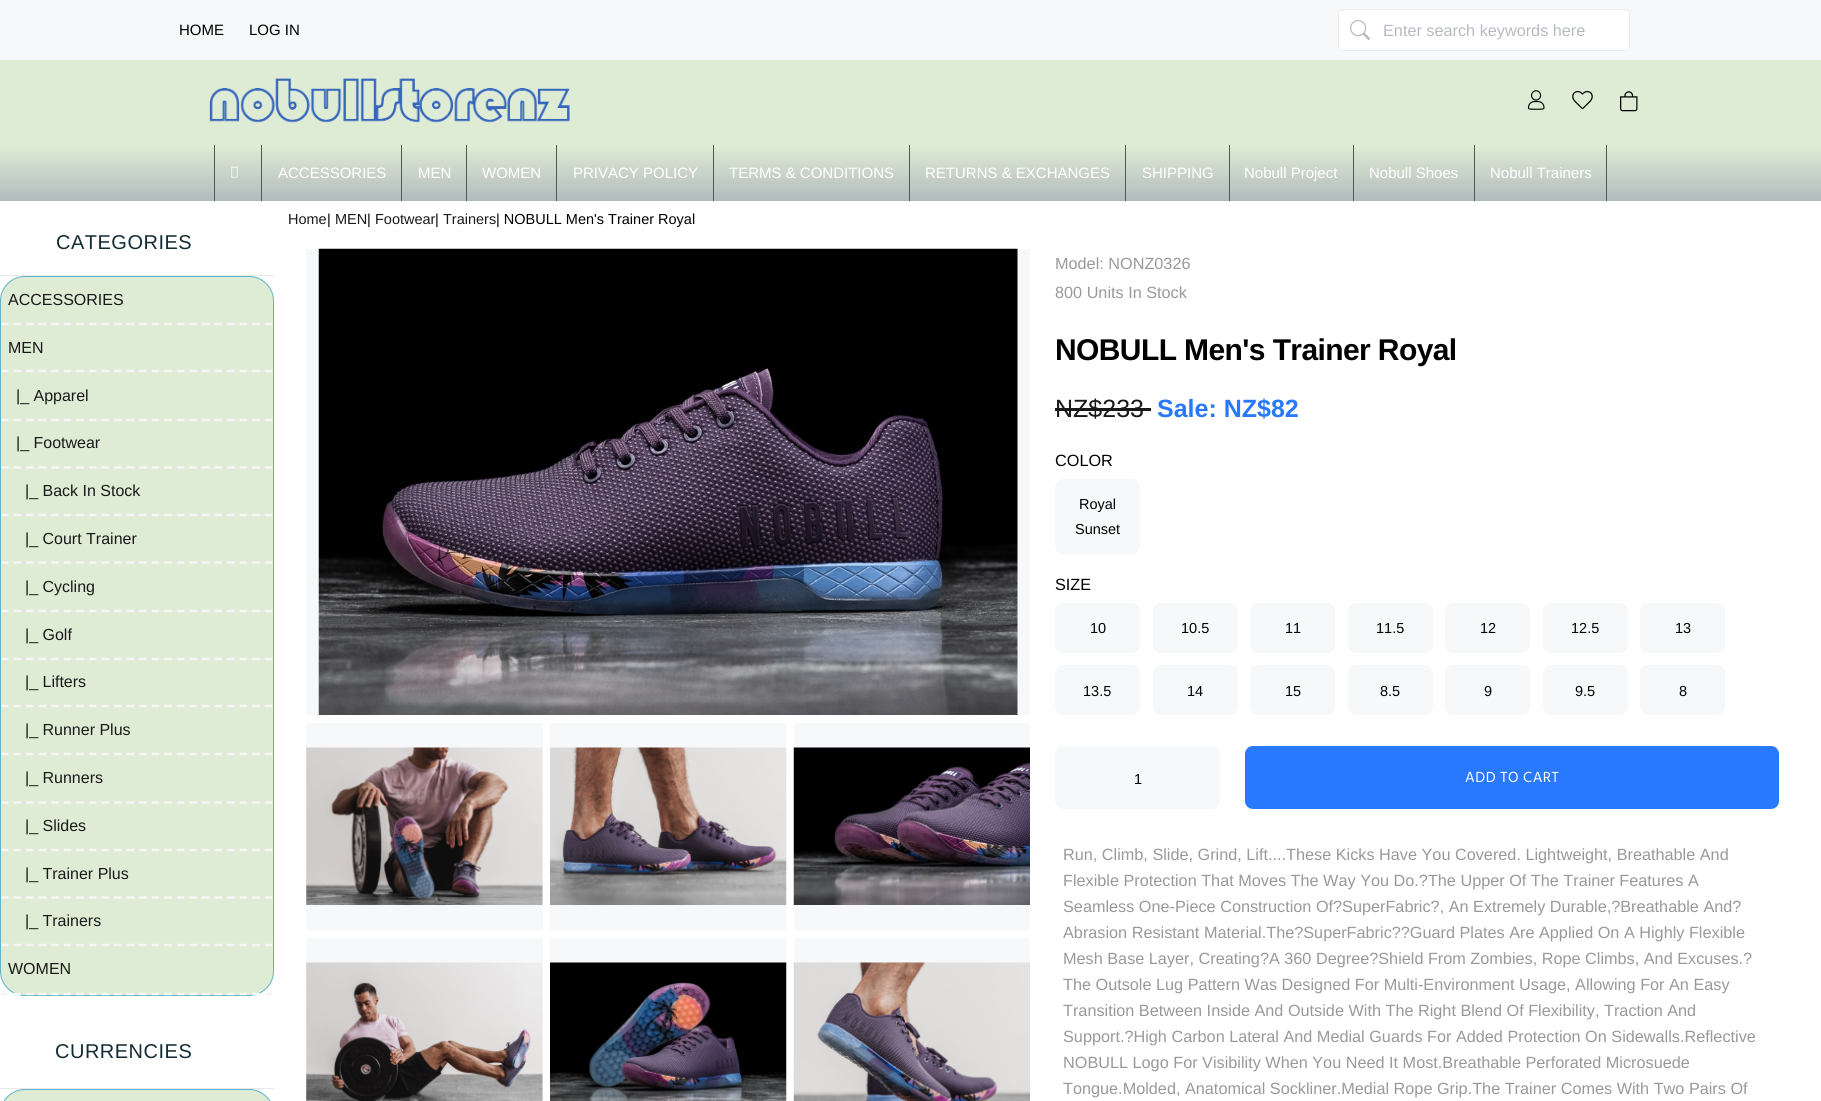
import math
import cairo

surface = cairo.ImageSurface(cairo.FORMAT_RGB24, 1821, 1101)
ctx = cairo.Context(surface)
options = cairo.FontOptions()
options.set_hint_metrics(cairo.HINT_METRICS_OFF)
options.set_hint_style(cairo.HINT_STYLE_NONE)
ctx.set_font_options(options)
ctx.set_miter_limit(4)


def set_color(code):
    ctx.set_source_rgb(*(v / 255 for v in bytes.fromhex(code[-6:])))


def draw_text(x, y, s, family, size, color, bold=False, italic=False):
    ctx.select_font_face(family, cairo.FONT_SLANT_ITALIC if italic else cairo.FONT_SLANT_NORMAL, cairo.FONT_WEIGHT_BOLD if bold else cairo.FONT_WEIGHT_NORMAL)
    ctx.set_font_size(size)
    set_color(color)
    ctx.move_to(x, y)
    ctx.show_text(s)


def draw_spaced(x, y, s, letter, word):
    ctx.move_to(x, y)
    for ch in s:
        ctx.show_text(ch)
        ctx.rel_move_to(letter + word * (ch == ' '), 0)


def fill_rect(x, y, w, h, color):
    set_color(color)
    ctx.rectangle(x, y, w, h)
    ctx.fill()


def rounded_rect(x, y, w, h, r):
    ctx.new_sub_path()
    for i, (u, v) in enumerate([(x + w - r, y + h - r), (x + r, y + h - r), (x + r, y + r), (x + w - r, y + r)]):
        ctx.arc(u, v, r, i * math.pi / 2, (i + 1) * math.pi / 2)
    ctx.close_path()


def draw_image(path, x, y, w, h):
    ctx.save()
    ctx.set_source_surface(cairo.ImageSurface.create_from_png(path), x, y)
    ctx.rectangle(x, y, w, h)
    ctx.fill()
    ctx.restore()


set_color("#dfecd5")
ctx.paint()
fill_rect(0, 0, 1821, 60, "#f7f8fa")
draw_text(179, 35, "HOME", "Liberation Sans", 15, "#000000")
draw_text(249, 35, "LOG IN", "Liberation Sans", 15, "#000000")
set_color("#ffffff")
rounded_rect(1338.5, 9.5, 291, 41, 4.5)
ctx.fill_preserve()
set_color("#eaeaea")
ctx.set_line_width(1)
ctx.stroke()
draw_image("assets/img1.png", 1350, 20, 20, 20)
draw_text(1383, 36, "Enter search keywords here", "Liberation Sans", 16.25, "#b7bac3")
draw_image("assets/img2.png", 209, 78, 361, 45)
draw_image("assets/img3.png", 1527, 90, 18, 20)
draw_image("assets/img4.png", 1572, 90, 21, 19)
draw_image("assets/img5.png", 1620, 91, 18, 21)
gradient = cairo.LinearGradient(911, 201, 911, 145)
gradient.add_color_stop_rgba(0, 0.698, 0.733, 0.745, 1)
gradient.add_color_stop_rgba(1, 0.875, 0.925, 0.835, 1)
ctx.set_source(gradient)
ctx.rectangle(0, 148, 1821, 53)
ctx.fill()
fill_rect(214, 145, 1, 56, "#555555")
draw_image("assets/img6.png", 231, 166, 7, 12)
fill_rect(261, 145, 1, 56, "#555555")
draw_text(278, 178, "ACCESSORIES", "Liberation Sans", 15, "#ffffff")
fill_rect(401, 145, 1, 56, "#555555")
draw_text(418, 178, "MEN", "Liberation Sans", 15, "#ffffff")
fill_rect(466, 145, 1, 56, "#555555")
draw_text(482, 178, "WOMEN", "Liberation Sans", 15, "#ffffff")
fill_rect(556, 145, 1, 56, "#555555")
draw_text(573, 178, "PRIVACY POLICY", "Liberation Sans", 15, "#ffffff")
fill_rect(713, 145, 1, 56, "#555555")
draw_text(729, 178, "TERMS & CONDITIONS", "Liberation Sans", 15, "#ffffff")
fill_rect(909, 145, 1, 56, "#555555")
draw_text(925, 178, "RETURNS & EXCHANGES", "Liberation Sans", 15, "#ffffff")
fill_rect(1125, 145, 1, 56, "#555555")
draw_text(1142, 178, "SHIPPING", "Liberation Sans", 15, "#ffffff")
fill_rect(1229, 145, 1, 56, "#555555")
draw_text(1244, 178, "Nobull Project", "Liberation Sans", 15, "#ffffff")
fill_rect(1353, 145, 1, 56, "#555555")
draw_text(1369, 178, "Nobull Shoes", "Liberation Sans", 15, "#ffffff")
fill_rect(1606, 145, 1, 56, "#555555")
fill_rect(1474, 145, 1, 56, "#555555")
draw_text(1490, 178, "Nobull Trainers", "Liberation Sans", 15, "#ffffff")
fill_rect(0, 201, 1821, 900, "#ffffff")
fill_rect(0, 275, 274, 1, "#e9e7e7")
ctx.set_font_size(20)
set_color("#132c33")
draw_spaced(56, 249, "CATEGORIES", 0.5, 0)
set_color("#dfecd5")
rounded_rect(0.5, 276.5, 273, 719, 24.5)
ctx.fill_preserve()
set_color("#5cb3cc")
ctx.stroke()
ctx.new_path()
ctx.move_to(1, 324)
ctx.line_to(272.5, 324)
set_color("#f5f5f5")
ctx.set_line_width(2.5)
ctx.set_dash([7.5, 5.06])
ctx.stroke()
draw_text(8, 305, "ACCESSORIES", "Liberation Sans", 16, "#191919")
ctx.new_path()
ctx.move_to(1, 371)
ctx.line_to(272.5, 371)
set_color("#f5f5f5")
ctx.stroke()
draw_text(8, 353, "MEN", "Liberation Sans", 16, "#191919")
ctx.new_path()
ctx.move_to(1, 420)
ctx.line_to(272.5, 420)
set_color("#f5f5f5")
ctx.stroke()
draw_text(16, 401, "|_ Apparel", "Liberation Sans", 16, "#191919")
ctx.new_path()
ctx.move_to(1, 467.5)
ctx.line_to(272.5, 467.5)
set_color("#f5f5f5")
ctx.stroke()
draw_text(16, 448, "|_ Footwear", "Liberation Sans", 16, "#191919")
ctx.new_path()
ctx.move_to(1, 515)
ctx.line_to(272.5, 515)
set_color("#f5f5f5")
ctx.stroke()
draw_text(25, 496, "|_ Back In Stock", "Liberation Sans", 16, "#191919")
ctx.new_path()
ctx.move_to(1, 562.5)
ctx.line_to(272.5, 562.5)
set_color("#f5f5f5")
ctx.stroke()
draw_text(25, 544, "|_ Court Trainer", "Liberation Sans", 16, "#191919")
ctx.new_path()
ctx.move_to(1, 611)
ctx.line_to(272.5, 611)
set_color("#f5f5f5")
ctx.stroke()
draw_text(25, 592, "|_ Cycling", "Liberation Sans", 16, "#191919")
ctx.new_path()
ctx.move_to(1, 659)
ctx.line_to(272.5, 659)
set_color("#f5f5f5")
ctx.stroke()
draw_text(25, 640, "|_ Golf", "Liberation Sans", 16, "#191919")
ctx.new_path()
ctx.move_to(1, 706)
ctx.line_to(272.5, 706)
set_color("#f5f5f5")
ctx.stroke()
draw_text(25, 687, "|_ Lifters", "Liberation Sans", 16, "#191919")
ctx.new_path()
ctx.move_to(1, 754)
ctx.line_to(272.5, 754)
set_color("#f5f5f5")
ctx.stroke()
draw_text(25, 735, "|_ Runner Plus", "Liberation Sans", 16, "#191919")
ctx.new_path()
ctx.move_to(1, 802.5)
ctx.line_to(272.5, 802.5)
set_color("#f5f5f5")
ctx.stroke()
draw_text(25, 783, "|_ Runners", "Liberation Sans", 16, "#191919")
ctx.new_path()
ctx.move_to(1, 850)
ctx.line_to(272.5, 850)
set_color("#f5f5f5")
ctx.stroke()
draw_text(25, 831, "|_ Slides", "Liberation Sans", 16, "#191919")
ctx.new_path()
ctx.move_to(1, 897.5)
ctx.line_to(272.5, 897.5)
set_color("#f5f5f5")
ctx.stroke()
draw_text(25, 879, "|_ Trainer Plus", "Liberation Sans", 16, "#191919")
ctx.new_path()
ctx.move_to(1, 945)
ctx.line_to(272.5, 945)
set_color("#f5f5f5")
ctx.stroke()
draw_text(25, 926, "|_ Trainers", "Liberation Sans", 16, "#191919")
ctx.new_path()
ctx.move_to(1, 994)
ctx.line_to(272.5, 994)
set_color("#f5f5f5")
ctx.stroke()
draw_text(8, 974, "WOMEN", "Liberation Sans", 16, "#191919")
fill_rect(0, 1088, 274, 1, "#e9e7e7")
ctx.set_font_size(20)
set_color("#132c33")
draw_spaced(55, 1058, "CURRENCIES", 0.5, 0)
set_color("#dfecd5")
rounded_rect(0.5, 1089.5, 273, 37, 24.5)
ctx.fill_preserve()
set_color("#5cb3cc")
ctx.set_line_width(1)
ctx.set_dash([])
ctx.stroke()
draw_text(288, 224, "Home", "Liberation Sans", 14.5, "#191919")
draw_text(327, 224, "|", "Liberation Sans", 14.5, "#000000")
draw_text(335, 224, "MEN", "Liberation Sans", 14.5, "#191919")
draw_text(367, 224, "|", "Liberation Sans", 14.5, "#000000")
draw_text(375, 224, "Footwear", "Liberation Sans", 14.5, "#191919")
draw_text(435, 224, "|", "Liberation Sans", 14.5, "#000000")
draw_text(443, 224, "Trainers", "Liberation Sans", 14.5, "#191919")
draw_text(496, 224, "| NOBULL Men's Trainer Royal", "Liberation Sans", 14.5, "#000000")
fill_rect(306, 249, 724, 466, "#f7f8fa")
draw_image("assets/img7.png", 318, 248, 700, 467)
fill_rect(306, 723, 237, 207, "#f7f8fa")
draw_image("assets/img8.png", 306, 747, 237, 158)
fill_rect(550, 723, 236, 207, "#f7f8fa")
draw_image("assets/img9.png", 550, 747, 237, 158)
fill_rect(794, 723, 236, 207, "#f7f8fa")
draw_image("assets/img10.png", 793, 747, 237, 158)
fill_rect(306, 938, 237, 163, "#f7f8fa")
draw_image("assets/img11.png", 306, 962, 237, 139)
fill_rect(550, 938, 236, 25, "#f7f8fa")
draw_image("assets/img12.png", 550, 962, 237, 139)
fill_rect(794, 938, 236, 25, "#f7f8fa")
draw_image("assets/img13.png", 793, 962, 237, 139)
draw_text(1055, 269, "Model: NONZ0326", "Liberation Sans", 16.25, "#999999")
draw_text(1055, 298, "800 Units In Stock", "Liberation Sans", 16.25, "#999999")
ctx.select_font_face("Liberation Sans", cairo.FONT_SLANT_NORMAL, cairo.FONT_WEIGHT_BOLD)
ctx.set_font_size(30)
set_color("#000000")
draw_spaced(1055, 360, "NOBULL Men's Trainer Royal", -0.6, 0)
draw_text(1055, 417, "NZ$233", "Liberation Sans", 25, "#191919")
fill_rect(1055, 408, 96, 3, "#191919")
draw_text(1157, 417, "Sale: NZ$82", "Liberation Sans", 25, "#2879fe", bold=True)
draw_text(1055, 466, "COLOR", "Liberation Sans", 16.25, "#000000")
set_color("#f7f8fa")
rounded_rect(1055, 479, 85, 75, 8)
ctx.fill()
draw_text(1079, 509, "Royal", "Liberation Sans", 14.5, "#000000")
draw_text(1075, 534, "Sunset", "Liberation Sans", 14.5, "#000000")
draw_text(1055, 590, "SIZE", "Liberation Sans", 16.25, "#000000")
set_color("#f7f8fa")
rounded_rect(1055, 603, 85, 50, 8)
ctx.fill()
draw_text(1090, 633, "10", "Liberation Sans", 14.5, "#000000")
set_color("#f7f8fa")
rounded_rect(1153, 603, 85, 50, 8)
ctx.fill()
draw_text(1181, 633, "10.5", "Liberation Sans", 14.5, "#000000")
set_color("#f7f8fa")
rounded_rect(1250, 603, 85, 50, 8)
ctx.fill()
draw_text(1285, 633, "11", "Liberation Sans", 14.5, "#000000")
set_color("#f7f8fa")
rounded_rect(1348, 603, 85, 50, 8)
ctx.fill()
draw_text(1376, 633, "11.5", "Liberation Sans", 14.5, "#000000")
set_color("#f7f8fa")
rounded_rect(1445, 603, 85, 50, 8)
ctx.fill()
draw_text(1480, 633, "12", "Liberation Sans", 14.5, "#000000")
set_color("#f7f8fa")
rounded_rect(1543, 603, 85, 50, 8)
ctx.fill()
draw_text(1571, 633, "12.5", "Liberation Sans", 14.5, "#000000")
set_color("#f7f8fa")
rounded_rect(1640, 603, 85, 50, 8)
ctx.fill()
draw_text(1675, 633, "13", "Liberation Sans", 14.5, "#000000")
set_color("#f7f8fa")
rounded_rect(1055, 665, 85, 50, 8)
ctx.fill()
draw_text(1083, 696, "13.5", "Liberation Sans", 14.5, "#000000")
set_color("#f7f8fa")
rounded_rect(1153, 665, 85, 50, 8)
ctx.fill()
draw_text(1187, 696, "14", "Liberation Sans", 14.5, "#000000")
set_color("#f7f8fa")
rounded_rect(1250, 665, 85, 50, 8)
ctx.fill()
draw_text(1285, 696, "15", "Liberation Sans", 14.5, "#000000")
set_color("#f7f8fa")
rounded_rect(1348, 665, 85, 50, 8)
ctx.fill()
draw_text(1380, 696, "8.5", "Liberation Sans", 14.5, "#000000")
set_color("#f7f8fa")
rounded_rect(1445, 665, 85, 50, 8)
ctx.fill()
draw_text(1484, 696, "9", "Liberation Sans", 14.5, "#000000")
set_color("#f7f8fa")
rounded_rect(1543, 665, 85, 50, 8)
ctx.fill()
draw_text(1575, 696, "9.5", "Liberation Sans", 14.5, "#000000")
set_color("#f7f8fa")
rounded_rect(1640, 665, 85, 50, 8)
ctx.fill()
draw_text(1679, 696, "8", "Liberation Sans", 14.5, "#000000")
set_color("#f7f8fa")
rounded_rect(1055, 746, 165, 63, 8)
ctx.fill()
draw_text(1134, 784, "1", "Liberation Sans", 14.5, "#000000")
set_color("#2879fe")
rounded_rect(1245, 746, 534, 63, 8)
ctx.fill()
ctx.select_font_face("Hind")
ctx.set_font_size(15)
set_color("#ffffff")
draw_spaced(1465, 782, "ADD TO CART", 0.5, 0)
draw_text(1063, 860, "Run, Climb, Slide, Grind, Lift....These Kicks Have You Covered. Lightweight, Breathable And", "Liberation Sans", 16.25, "#999999")
draw_text(1063, 886, "Flexible Protection That Moves The Way You Do.?The Upper Of The Trainer Features A", "Liberation Sans", 16.25, "#999999")
draw_text(1063, 912, "Seamless One-Piece Construction Of?SuperFabric?, An Extremely Durable,?Breathable And?", "Liberation Sans", 16.25, "#999999")
draw_text(1063, 938, "Abrasion Resistant Material.The?SuperFabric??Guard Plates Are Applied On A Highly Flexible", "Liberation Sans", 16.25, "#999999")
draw_text(1063, 964, "Mesh Base Layer, Creating?A 360 Degree?Shield From Zombies, Rope Climbs, And Excuses.?", "Liberation Sans", 16.25, "#999999")
draw_text(1063, 990, "The Outsole Lug Pattern Was Designed For Multi-Environment Usage, Allowing For An Easy", "Liberation Sans", 16.25, "#999999")
draw_text(1063, 1016, "Transition Between Inside And Outside With The Right Blend Of Flexibility, Traction And", "Liberation Sans", 16.25, "#999999")
draw_text(1063, 1042, "Support.?High Carbon Lateral And Medial Guards For Added Protection On Sidewalls.Reflective", "Liberation Sans", 16.25, "#999999")
draw_text(1063, 1068, "NOBULL Logo For Visibility When You Need It Most.Breathable Perforated Microsuede", "Liberation Sans", 16.25, "#999999")
draw_text(1063, 1094, "Tongue.Molded, Anatomical Sockliner.Medial Rope Grip.The Trainer Comes With Two Pairs Of", "Liberation Sans", 16.25, "#999999")
surface.write_to_png("output.png")
